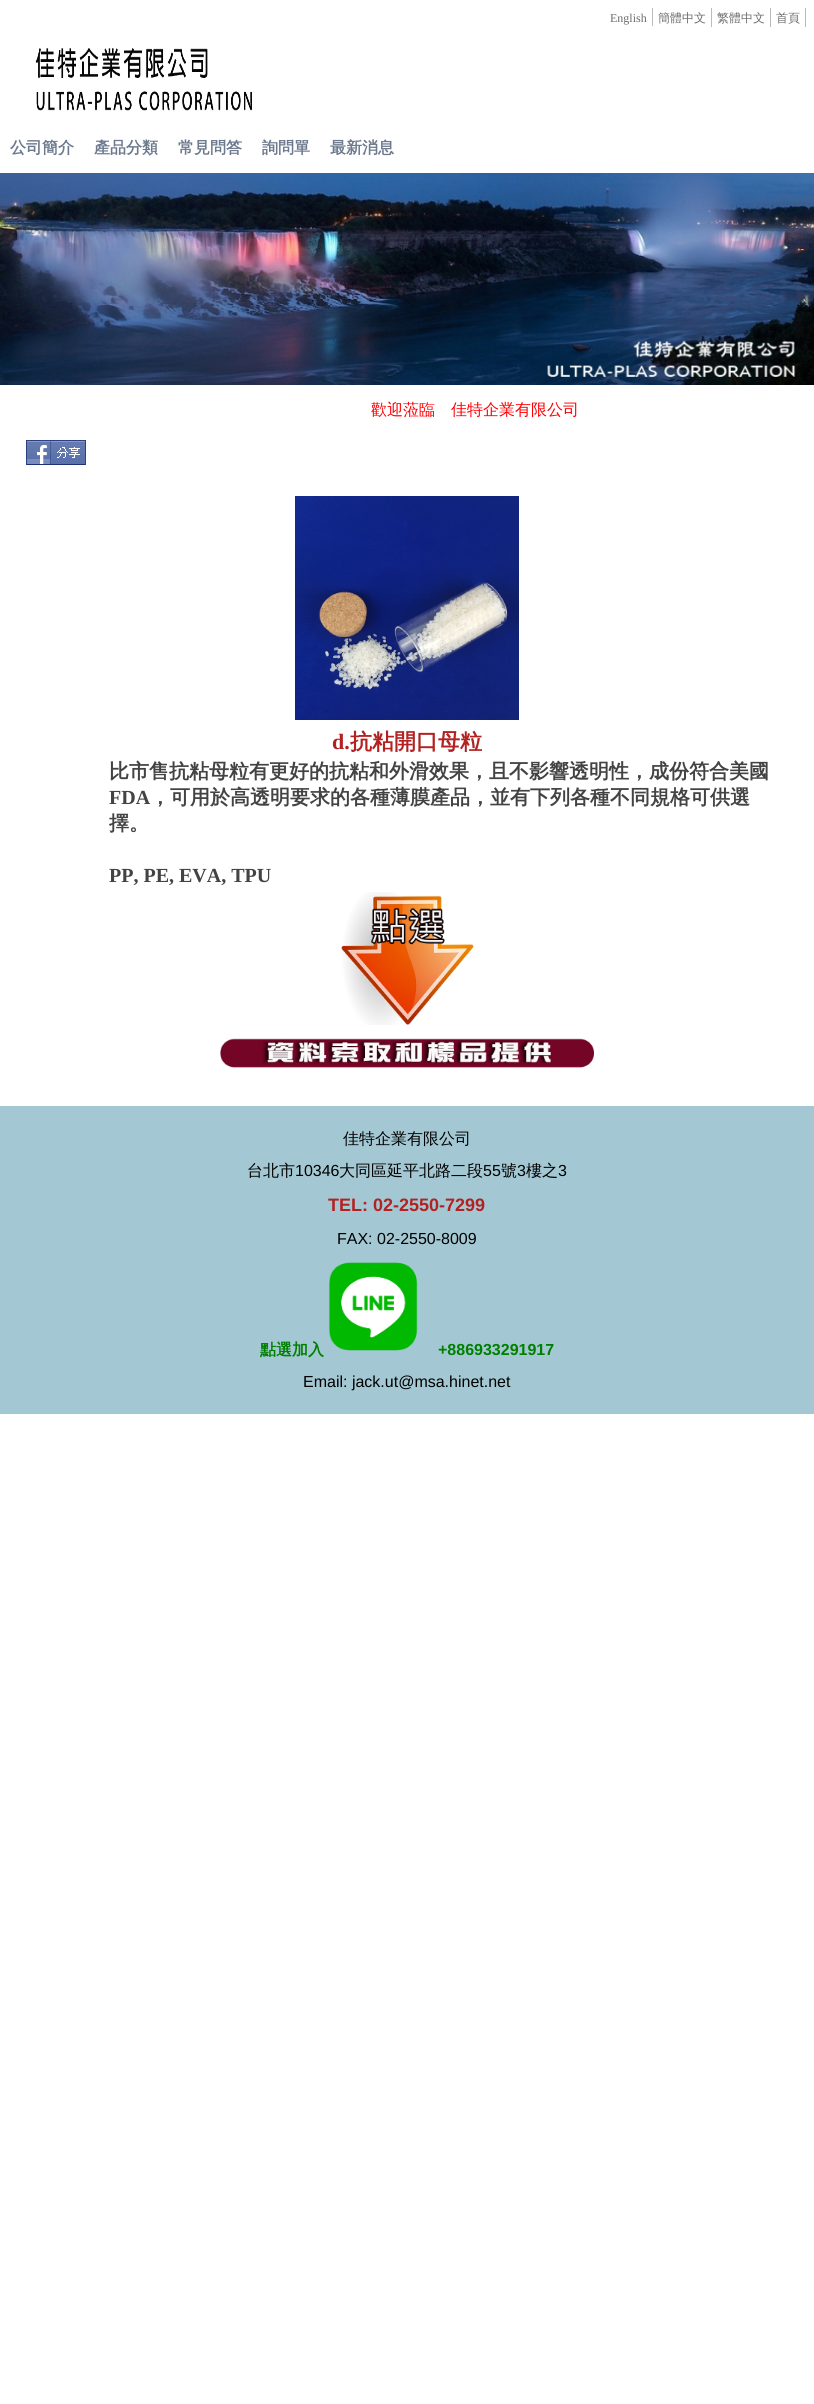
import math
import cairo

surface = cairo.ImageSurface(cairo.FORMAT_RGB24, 814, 2404)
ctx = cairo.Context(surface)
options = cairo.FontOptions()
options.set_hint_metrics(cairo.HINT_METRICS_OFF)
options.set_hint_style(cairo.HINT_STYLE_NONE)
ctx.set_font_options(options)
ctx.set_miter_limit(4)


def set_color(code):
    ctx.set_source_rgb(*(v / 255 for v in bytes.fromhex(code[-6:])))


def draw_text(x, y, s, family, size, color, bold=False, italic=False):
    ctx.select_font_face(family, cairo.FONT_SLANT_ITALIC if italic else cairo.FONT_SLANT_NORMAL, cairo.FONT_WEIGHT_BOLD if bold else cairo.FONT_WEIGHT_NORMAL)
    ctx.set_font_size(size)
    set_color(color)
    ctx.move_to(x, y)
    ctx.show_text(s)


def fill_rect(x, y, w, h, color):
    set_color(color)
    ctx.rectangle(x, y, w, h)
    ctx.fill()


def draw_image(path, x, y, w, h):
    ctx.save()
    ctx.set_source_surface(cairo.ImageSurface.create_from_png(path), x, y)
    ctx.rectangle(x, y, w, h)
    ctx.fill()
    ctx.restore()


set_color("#ffffff")
ctx.paint()
fill_rect(652, 8, 1, 18, "#bbbbbb")
draw_text(610, 22, "English", "Liberation Serif", 12, "#6c6c6c")
fill_rect(711, 8, 1, 19, "#bbbbbb")
draw_text(658, 22, "簡體中文", "WenQuanYi Zen Hei Medium", 12, "#6c6c6c")
fill_rect(770, 8, 1, 19, "#bbbbbb")
draw_text(717, 22, "繁體中文", "WenQuanYi Zen Hei Medium", 12, "#6c6c6c")
fill_rect(805, 8, 1, 19, "#bbbbbb")
draw_text(776, 22, "首頁", "WenQuanYi Zen Hei Medium", 12, "#6c6c6c")
draw_image("assets/img1.png", 35, 48, 217, 63)
draw_text(10, 153, "公司簡介", "WenQuanYi Zen Hei", 16, "#6d7a8e", bold=True)
draw_text(94, 153, "產品分類", "WenQuanYi Zen Hei", 16, "#6d7a8e", bold=True)
draw_text(178, 153, "常見問答", "WenQuanYi Zen Hei", 16, "#6d7a8e", bold=True)
draw_text(262, 153, "詢問單", "WenQuanYi Zen Hei", 16, "#6d7a8e", bold=True)
draw_text(330, 153, "最新消息", "WenQuanYi Zen Hei", 16, "#6d7a8e", bold=True)
draw_image("assets/img2.png", 0, 173, 814, 212)
draw_text(371, 415, "歡迎蒞臨　佳特企業有限公司", "WenQuanYi Zen Hei Medium", 16, "#ff0004")
draw_image("assets/img3.png", 26, 440, 60, 25)
draw_image("assets/img4.png", 295, 496, 224, 224)
draw_text(332, 749, "d.", "Liberation Serif", 22, "#b22222", bold=True)
draw_text(350, 749, "抗粘開口母粒", "WenQuanYi Zen Hei", 22, "#b22222", bold=True)
draw_text(109, 778, "比市售抗粘母粒有更好的抗粘和外滑效果，且不影響透明性，成份符合美國", "WenQuanYi Zen Hei", 20, "#434343", bold=True)
draw_text(109, 804, "FDA", "Liberation Serif", 20, "#434343", bold=True)
draw_text(150, 804, "，可用於高透明要求的各種薄膜產品，並有下列各種不同規格可供選", "WenQuanYi Zen Hei", 20, "#434343", bold=True)
draw_text(109, 830, "擇。", "WenQuanYi Zen Hei", 20, "#434343", bold=True)
draw_text(109, 882, "PP, PE, EVA, TPU", "Liberation Serif", 20, "#434343", bold=True)
draw_image("assets/img5.png", 341, 892, 133, 133)
draw_image("assets/img6.png", 220, 1038, 374, 30)
fill_rect(0, 1106, 814, 308, "#a3c8d3")
draw_text(343, 1144, "佳特企業有限公司", "WenQuanYi Zen Hei Medium", 16, "#000000")
draw_text(247, 1176, "台北市", "WenQuanYi Zen Hei Medium", 16, "#000000")
draw_text(295, 1176, "10346", "Liberation Sans", 16, "#000000")
draw_text(339, 1176, "大同區延平北路二段", "WenQuanYi Zen Hei Medium", 16, "#000000")
draw_text(483, 1176, "55", "Liberation Sans", 16, "#000000")
draw_text(501, 1176, "號", "WenQuanYi Zen Hei Medium", 16, "#000000")
draw_text(517, 1176, "3", "Liberation Sans", 16, "#000000")
draw_text(526, 1176, "樓之", "WenQuanYi Zen Hei Medium", 16, "#000000")
draw_text(558, 1176, "3", "Liberation Sans", 16, "#000000")
draw_text(328, 1211, "TEL: 02-2550-7299", "Liberation Sans", 18, "#b22222", bold=True)
draw_text(337, 1244, "FAX: 02-2550-8009", "Liberation Sans", 16, "#000000")
draw_text(260, 1355, "點選加入", "WenQuanYi Zen Hei", 16, "#008000", bold=True)
draw_image("assets/img7.png", 329, 1262, 89, 89)
draw_text(438, 1355, "+886933291917", "Liberation Sans", 16, "#008000", bold=True)
draw_text(303, 1387, "Email: jack.ut@msa.hinet.net", "Liberation Sans", 16, "#000000")
surface.write_to_png("output.png")
